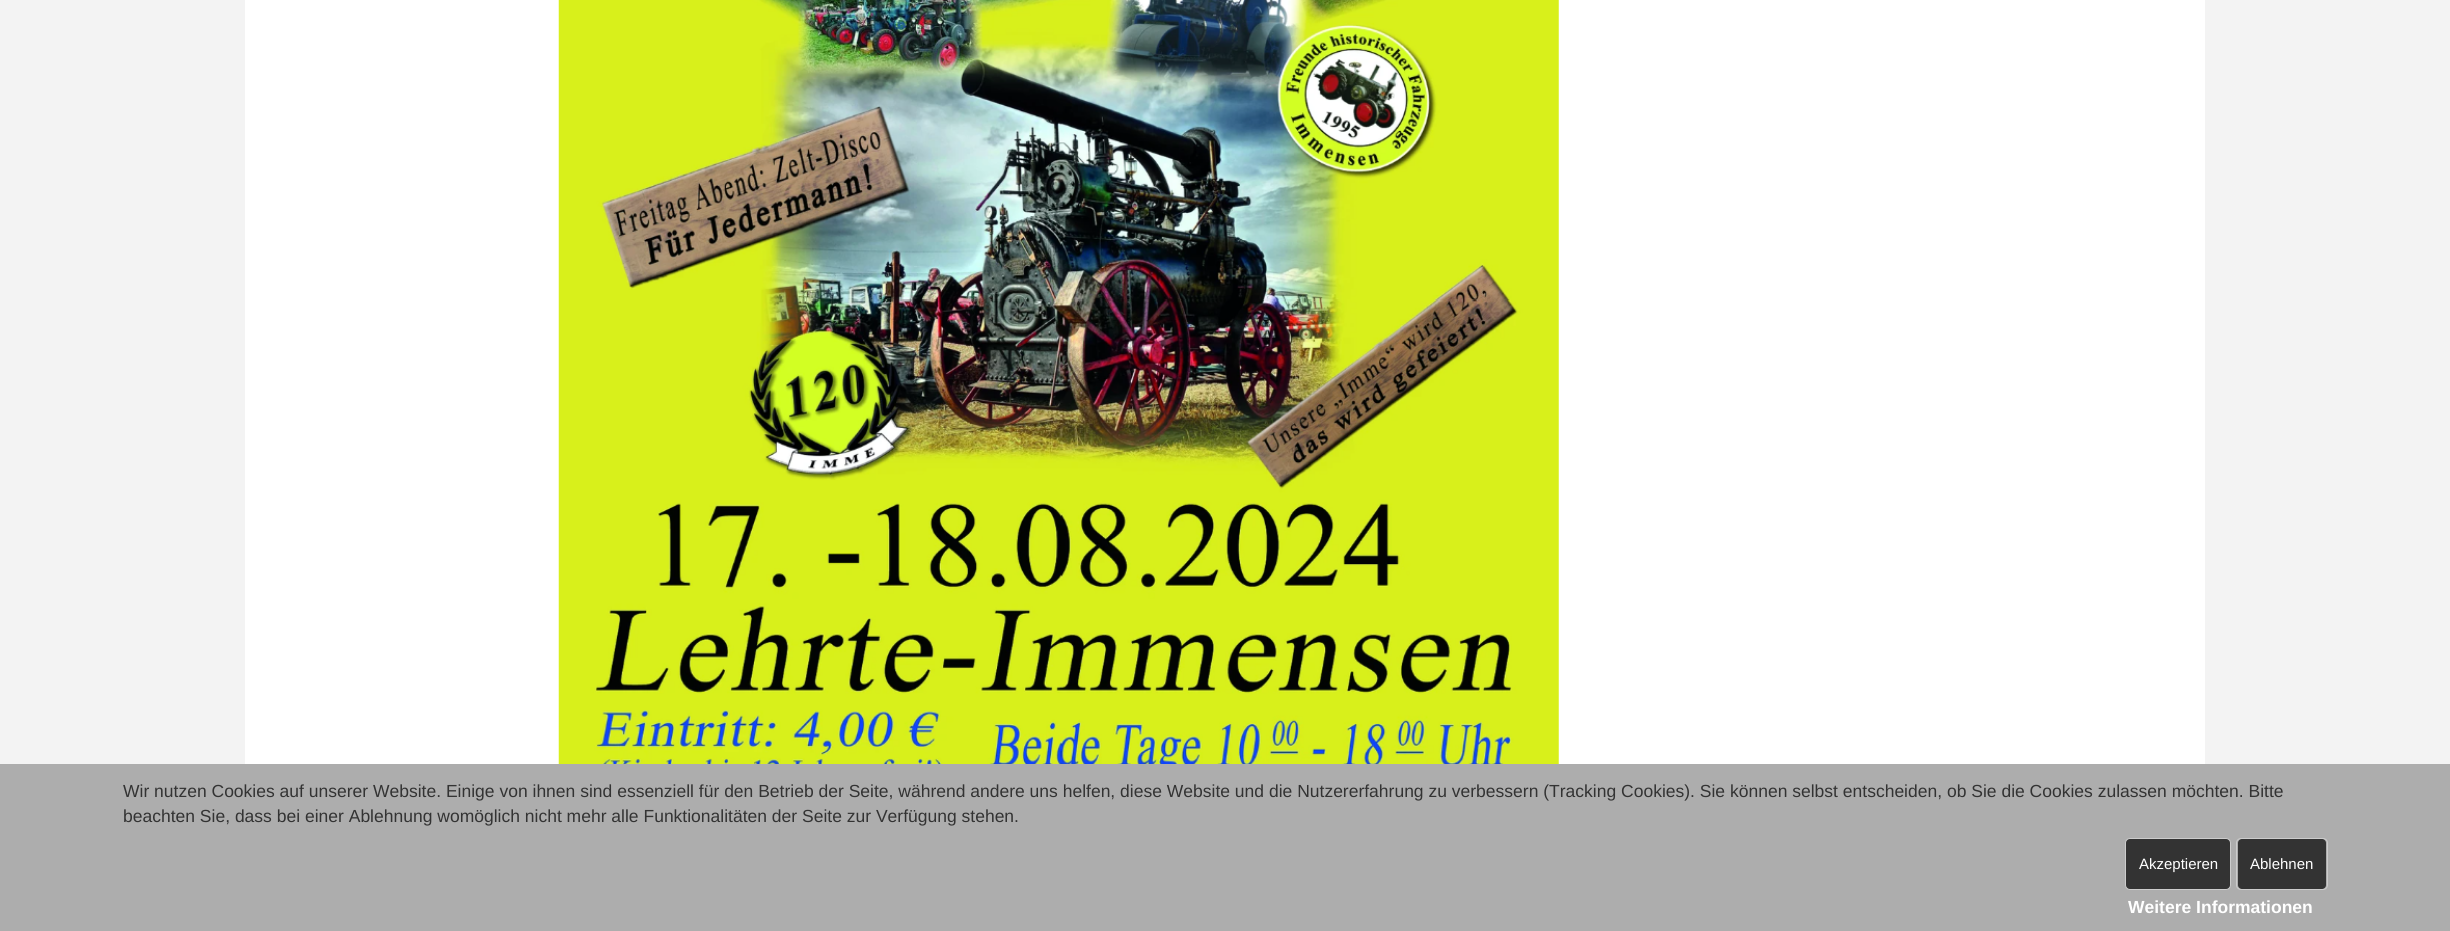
import math
import cairo

surface = cairo.ImageSurface(cairo.FORMAT_RGB24, 2450, 931)
ctx = cairo.Context(surface)
options = cairo.FontOptions()
options.set_hint_metrics(cairo.HINT_METRICS_OFF)
options.set_hint_style(cairo.HINT_STYLE_NONE)
ctx.set_font_options(options)
ctx.set_miter_limit(4)


def set_color(code):
    ctx.set_source_rgb(*(v / 255 for v in bytes.fromhex(code[-6:])))


def draw_text(x, y, s, family, size, color, bold=False, italic=False):
    ctx.select_font_face(family, cairo.FONT_SLANT_ITALIC if italic else cairo.FONT_SLANT_NORMAL, cairo.FONT_WEIGHT_BOLD if bold else cairo.FONT_WEIGHT_NORMAL)
    ctx.set_font_size(size)
    set_color(color)
    ctx.move_to(x, y)
    ctx.show_text(s)


def fill_rect(x, y, w, h, color):
    set_color(color)
    ctx.rectangle(x, y, w, h)
    ctx.fill()


def rounded_rect(x, y, w, h, r):
    ctx.new_sub_path()
    for i, (u, v) in enumerate([(x + w - r, y + h - r), (x + r, y + h - r), (x + r, y + r), (x + w - r, y + r)]):
        ctx.arc(u, v, r, i * math.pi / 2, (i + 1) * math.pi / 2)
    ctx.close_path()


def draw_image(path, x, y, w, h):
    ctx.save()
    ctx.set_source_surface(cairo.ImageSurface.create_from_png(path), x, y)
    ctx.rectangle(x, y, w, h)
    ctx.fill()
    ctx.restore()


set_color("#f3f3f3")
ctx.paint()
fill_rect(245, 0, 1960, 764, "#ffffff")
draw_image("assets/img1.png", 558, 0, 1001, 764)
fill_rect(0, 764, 2450, 167, "#adadad")
draw_text(123, 797, "Wir nutzen Cookies auf unserer Website. Einige von ihnen sind essenziell für den Betrieb der Seite, während andere uns helfen, diese Website und die Nutzererfahrung zu verbessern (Tracking Cookies). Sie können selbst entscheiden, ob Sie die Cookies zulassen möchten. Bitte", "Liberation Sans", 17.5, "#333333")
draw_text(123, 822, "beachten Sie, dass bei einer Ablehnung womöglich nicht mehr alle Funktionalitäten der Seite zur Verfügung stehen.", "Liberation Sans", 17.5, "#333333")
rounded_rect(2125.5, 838.5, 105, 51, 4.5)
ctx.fill_preserve()
set_color("#cccccc")
ctx.set_line_width(1)
ctx.stroke()
draw_text(2139, 869, "Akzeptieren", "Liberation Sans", 15, "#ffffff")
set_color("#333333")
rounded_rect(2238, 839, 88, 50, 4)
ctx.fill()
rounded_rect(2236.5, 838.5, 91, 51, 4.5)
set_color("#cccccc")
ctx.stroke()
draw_text(2250, 869, "Ablehnen", "Liberation Sans", 15, "#ffffff")
draw_text(2128, 913, "Weitere Informationen", "Liberation Sans", 17.5, "#ffffff", bold=True)
surface.write_to_png("output.png")
